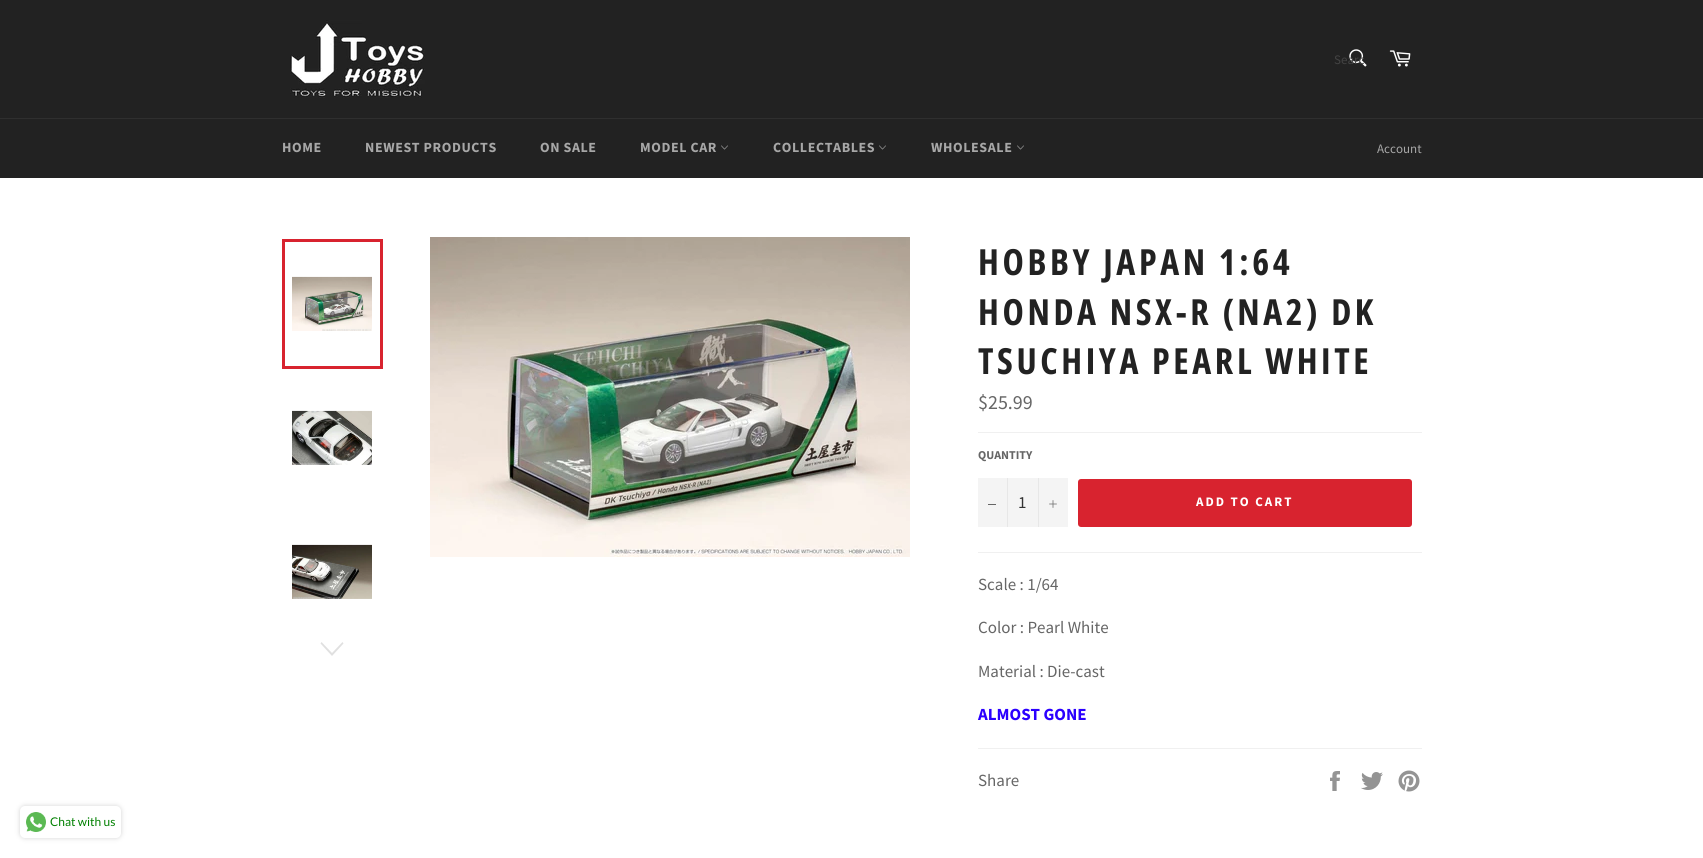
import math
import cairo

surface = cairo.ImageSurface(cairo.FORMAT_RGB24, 1703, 858)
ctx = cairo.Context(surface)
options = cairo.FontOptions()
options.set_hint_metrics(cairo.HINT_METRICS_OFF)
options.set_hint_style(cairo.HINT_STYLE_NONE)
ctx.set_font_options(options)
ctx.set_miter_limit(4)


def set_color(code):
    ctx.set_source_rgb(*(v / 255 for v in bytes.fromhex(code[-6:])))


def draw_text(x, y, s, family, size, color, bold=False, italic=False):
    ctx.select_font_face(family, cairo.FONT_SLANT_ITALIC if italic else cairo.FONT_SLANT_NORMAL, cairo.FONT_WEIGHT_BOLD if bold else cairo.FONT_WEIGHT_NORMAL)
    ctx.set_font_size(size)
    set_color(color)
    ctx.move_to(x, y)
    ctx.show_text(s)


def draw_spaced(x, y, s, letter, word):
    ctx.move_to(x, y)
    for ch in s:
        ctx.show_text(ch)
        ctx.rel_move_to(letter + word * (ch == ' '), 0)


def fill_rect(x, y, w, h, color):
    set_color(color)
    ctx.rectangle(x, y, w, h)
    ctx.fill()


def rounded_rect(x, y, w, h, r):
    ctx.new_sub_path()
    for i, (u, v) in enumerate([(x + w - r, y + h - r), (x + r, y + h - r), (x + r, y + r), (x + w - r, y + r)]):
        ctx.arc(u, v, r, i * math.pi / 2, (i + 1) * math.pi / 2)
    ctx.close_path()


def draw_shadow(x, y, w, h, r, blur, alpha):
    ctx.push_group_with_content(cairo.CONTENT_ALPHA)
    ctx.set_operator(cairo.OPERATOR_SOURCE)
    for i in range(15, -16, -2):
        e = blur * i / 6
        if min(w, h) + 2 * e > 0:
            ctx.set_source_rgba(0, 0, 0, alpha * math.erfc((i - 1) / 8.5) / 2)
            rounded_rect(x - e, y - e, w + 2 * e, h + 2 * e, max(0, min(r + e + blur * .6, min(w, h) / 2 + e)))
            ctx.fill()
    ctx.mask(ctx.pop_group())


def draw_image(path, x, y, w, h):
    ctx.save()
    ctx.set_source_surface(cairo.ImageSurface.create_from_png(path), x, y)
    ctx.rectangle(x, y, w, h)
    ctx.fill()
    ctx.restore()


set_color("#222222")
ctx.paint()
draw_image("assets/img1.png", 290, 20, 135, 78)
draw_image("assets/img2.png", 1349, 49, 18, 18)
draw_text(1334, 64, "Searc", "Source Sans Pro", 13, "#434343")
draw_image("assets/img3.png", 1389, 50, 22, 17)
fill_rect(0, 118, 1703, 1, "#2f2f2f")
ctx.select_font_face("Source Sans Pro", cairo.FONT_SLANT_NORMAL, cairo.FONT_WEIGHT_BOLD)
ctx.set_font_size(14)
set_color("#a7a7a7")
draw_spaced(282, 152, "HOME", 0.6, 0)
draw_spaced(365, 152, "NEWEST PRODUCTS", 0.6, 0)
draw_spaced(540, 152, "ON SALE", 0.6, 0)
draw_spaced(640, 152, "MODEL CAR", 0.6, 0)
draw_image("assets/img4.png", 721, 145, 7, 5)
draw_spaced(773, 152, "COLLECTABLES", 0.6, 0)
draw_image("assets/img4.png", 879, 145, 7, 5)
draw_spaced(931, 152, "WHOLESALE", 0.6, 0)
draw_image("assets/img4.png", 1017, 145, 7, 5)
draw_text(1377, 153, "Account", "Source Sans Pro", 13, "#a7a7a7")
fill_rect(0, 178, 1703, 680, "#ffffff")
draw_image("assets/img5.png", 292, 276, 80, 55)
ctx.rectangle(283.5, 240.5, 98, 127)
set_color("#d8232f")
ctx.set_line_width(3)
ctx.stroke()
draw_image("assets/img6.png", 292, 410, 80, 55)
draw_image("assets/img7.png", 292, 544, 80, 55)
set_color("#e0e0e0")
ctx.new_path()
ctx.move_to(342.5, 642)
ctx.line_to(343.5, 643.5)
ctx.line_to(332, 656)
ctx.line_to(320.5, 643.5)
ctx.line_to(321.5, 642)
ctx.line_to(332, 653)
ctx.close_path()
ctx.fill()
draw_image("assets/img8.png", 430, 237, 480, 320)
ctx.select_font_face("Open Sans Condensed", cairo.FONT_SLANT_NORMAL, cairo.FONT_WEIGHT_BOLD)
ctx.set_font_size(36)
set_color("#222222")
draw_spaced(978, 275, "HOBBY JAPAN 1:64", 3.6, 0)
draw_spaced(978, 325, "HONDA NSX-R (NA2) DK", 3.6, 0)
draw_spaced(978, 374, "TSUCHIYA PEARL WHITE", 3.6, 0)
draw_text(978, 409, "$25.99", "Source Sans Pro", 20, "#666666")
fill_rect(978, 432, 444, 1, "#f0f0f0")
draw_text(978, 459, "QUANTITY", "Source Sans Pro", 12, "#666666", bold=True)
fill_rect(978, 478, 90, 49, "#f4f4f4")
fill_rect(1007, 478, 1, 49, "#e7e7e7")
fill_rect(988, 504, 8, 1, "#666666")
draw_text(1018, 508, "1", "Source Sans Pro", 17, "#333333")
fill_rect(1038, 478, 1, 49, "#e7e7e7")
draw_image("assets/img9.png", 1049, 500, 8, 8)
set_color("#d8232f")
rounded_rect(1078, 479, 334, 48, 3)
ctx.fill()
ctx.select_font_face("Source Sans Pro", cairo.FONT_SLANT_NORMAL, cairo.FONT_WEIGHT_BOLD)
ctx.set_font_size(13)
set_color("#ffffff")
draw_spaced(1196, 506, "ADD TO CART", 2, 0)
fill_rect(978, 552, 444, 1, "#f0f0f0")
draw_text(978, 590, "Scale : 1/64", "Source Sans Pro", 17, "#666666")
draw_text(978, 633, "Color : Pearl White", "Source Sans Pro", 17, "#666666")
draw_text(978, 677, "Material : Die-cast", "Source Sans Pro", 17, "#666666")
draw_text(978, 720, "ALMOST GONE", "Source Sans Pro", 17, "#2b00ff", bold=True)
fill_rect(978, 748, 444, 1, "#f0f0f0")
draw_text(978, 786, "Share", "Source Sans Pro", 17, "#666666")
draw_image("assets/img10.png", 1330, 771, 10, 20)
draw_image("assets/img11.png", 1361, 772, 22, 18)
draw_image("assets/img12.png", 1398, 770, 22, 22)
set_color("#d3d3d3")
draw_shadow(20, 806, 101, 32, 5, 2.5, 1)
set_color("#ffffff")
rounded_rect(20, 806, 101, 32, 5)
ctx.fill()
draw_image("assets/img13.png", 26, 812, 20, 20)
draw_text(50, 826, "Chat with us", "Lato", 12, "#008000")
surface.write_to_png("output.png")
